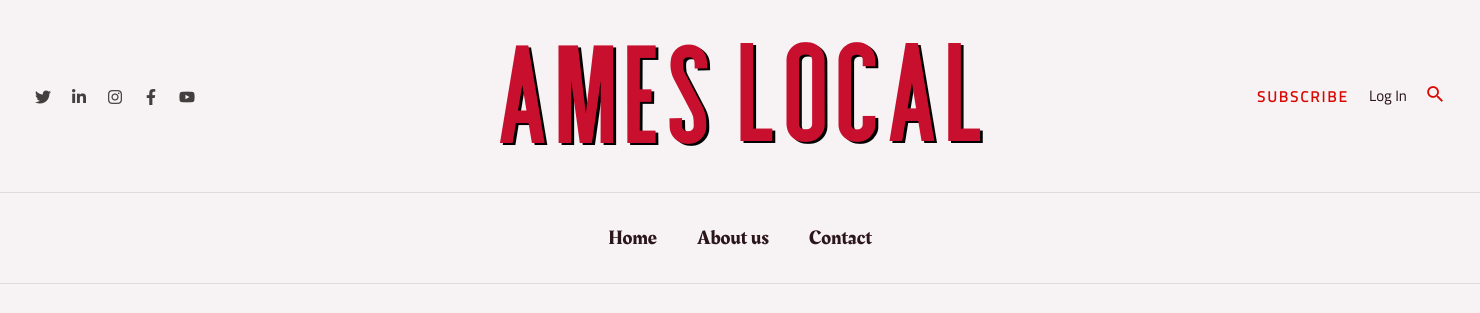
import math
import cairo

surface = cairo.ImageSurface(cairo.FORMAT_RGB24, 1480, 313)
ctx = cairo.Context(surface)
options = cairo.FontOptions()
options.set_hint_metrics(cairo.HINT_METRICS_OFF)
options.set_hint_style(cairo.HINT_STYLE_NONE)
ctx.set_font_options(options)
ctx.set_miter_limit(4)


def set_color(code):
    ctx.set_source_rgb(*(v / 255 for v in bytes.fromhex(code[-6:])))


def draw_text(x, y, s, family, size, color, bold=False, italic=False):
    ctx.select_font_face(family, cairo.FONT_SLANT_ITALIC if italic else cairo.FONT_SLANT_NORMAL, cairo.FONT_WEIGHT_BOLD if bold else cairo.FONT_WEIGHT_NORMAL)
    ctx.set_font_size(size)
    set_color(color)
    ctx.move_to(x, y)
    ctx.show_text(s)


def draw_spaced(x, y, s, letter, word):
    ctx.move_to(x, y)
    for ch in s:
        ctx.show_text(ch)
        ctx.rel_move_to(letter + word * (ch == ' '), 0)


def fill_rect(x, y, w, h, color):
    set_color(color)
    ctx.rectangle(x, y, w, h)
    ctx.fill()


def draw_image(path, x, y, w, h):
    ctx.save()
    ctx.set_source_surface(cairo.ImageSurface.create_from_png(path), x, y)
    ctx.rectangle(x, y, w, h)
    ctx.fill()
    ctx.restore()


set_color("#f7f3f5")
ctx.paint()
fill_rect(0, 192, 1480, 1, "#dedbdd")
draw_image("assets/img1.png", 35, 90, 16, 14)
draw_image("assets/img2.png", 72, 89, 14, 14)
draw_image("assets/img3.png", 108, 90, 14, 14)
draw_image("assets/img4.png", 146, 89, 10, 16)
draw_image("assets/img5.png", 179, 91, 16, 12)
draw_image("assets/img6.png", 500, 42, 483, 104)
ctx.select_font_face("Cairo", cairo.FONT_SLANT_NORMAL, cairo.FONT_WEIGHT_BOLD)
ctx.set_font_size(15)
set_color("#d90700")
draw_spaced(1257, 102, "SUBSCRIBE", 2, 0)
draw_text(1369, 101, "Log In", "Cairo", 15, "#2b161b")
draw_image("assets/img7.png", 1427, 86, 16, 16)
fill_rect(0, 283, 1480, 1, "#dedbdd")
draw_text(608, 244, "Home", "Rakkas", 20, "#2b161b")
draw_text(697, 244, "About us", "Rakkas", 20, "#2b161b")
draw_text(809, 244, "Contact", "Rakkas", 20, "#2b161b")
surface.write_to_png("output.png")
